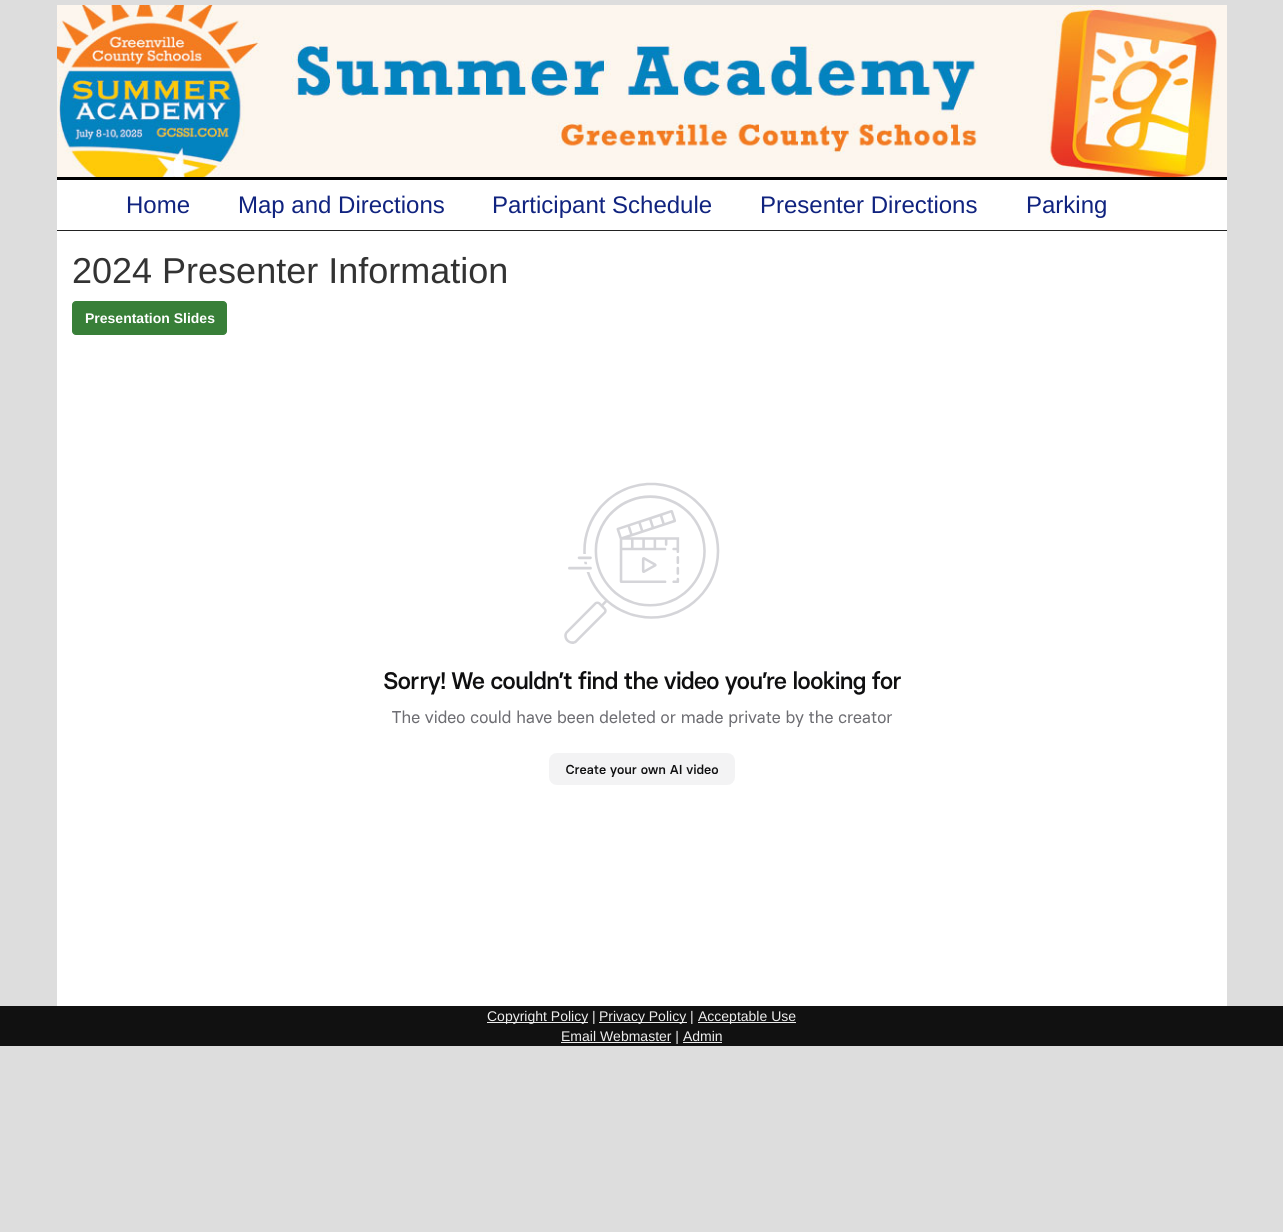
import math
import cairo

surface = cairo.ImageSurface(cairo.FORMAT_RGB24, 1283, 1232)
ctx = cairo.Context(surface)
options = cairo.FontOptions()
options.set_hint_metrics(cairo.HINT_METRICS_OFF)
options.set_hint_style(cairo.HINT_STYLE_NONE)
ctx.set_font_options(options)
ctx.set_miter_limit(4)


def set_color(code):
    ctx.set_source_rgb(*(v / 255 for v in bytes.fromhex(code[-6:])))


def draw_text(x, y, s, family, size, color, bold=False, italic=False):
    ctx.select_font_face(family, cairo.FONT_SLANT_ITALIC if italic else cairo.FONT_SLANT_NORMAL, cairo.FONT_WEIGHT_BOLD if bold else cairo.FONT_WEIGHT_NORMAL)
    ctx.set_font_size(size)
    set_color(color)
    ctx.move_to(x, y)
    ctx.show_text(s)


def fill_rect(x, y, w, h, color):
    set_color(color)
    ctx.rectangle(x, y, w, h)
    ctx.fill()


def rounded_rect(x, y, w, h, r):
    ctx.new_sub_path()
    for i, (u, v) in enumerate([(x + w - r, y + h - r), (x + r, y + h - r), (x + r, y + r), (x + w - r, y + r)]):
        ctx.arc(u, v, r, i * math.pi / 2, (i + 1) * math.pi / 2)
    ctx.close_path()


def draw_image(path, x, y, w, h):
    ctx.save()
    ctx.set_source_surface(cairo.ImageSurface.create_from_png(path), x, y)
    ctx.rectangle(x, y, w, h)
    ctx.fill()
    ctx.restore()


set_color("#dddddd")
ctx.paint()
fill_rect(1220, 5, 7, 172, "#fdf6ee")
draw_image("assets/img1.png", 57, 5, 1163, 172)
fill_rect(57, 177, 1170, 3, "#000000")
fill_rect(57, 180, 1170, 50, "#ffffff")
fill_rect(57, 230, 1170, 1, "#222222")
draw_text(126, 213, "Home", "Liberation Sans", 24, "#10237f")
draw_text(238, 213, "Map and Directions", "Liberation Sans", 24, "#10237f")
draw_text(492, 213, "Participant Schedule", "Liberation Sans", 24, "#10237f")
draw_text(760, 213, "Presenter Directions", "Liberation Sans", 24, "#10237f")
draw_text(1026, 213, "Parking", "Liberation Sans", 24, "#10237f")
fill_rect(57, 231, 1170, 775, "#ffffff")
draw_text(72, 283, "2024 Presenter Information", "Liberation Sans", 36, "#333333")
set_color("#387f38")
rounded_rect(72.5, 301.5, 154, 33, 3.5)
ctx.fill_preserve()
ctx.set_line_width(1)
ctx.stroke()
draw_text(85, 323, "Presentation Slides", "Liberation Sans", 14, "#ffffff", bold=True)
draw_image("assets/img2.png", 384, 482, 517, 303)
fill_rect(0, 1006, 1283, 40, "#111111")
fill_rect(487, 1022, 101, 1, "#eeeeee")
draw_text(487, 1021, "Copyright Policy |", "Liberation Sans", 14, "#eeeeee")
fill_rect(599, 1022, 88, 1, "#eeeeee")
draw_text(599, 1021, "Privacy Policy |", "Liberation Sans", 14, "#eeeeee")
fill_rect(698, 1022, 98, 1, "#eeeeee")
draw_text(698, 1021, "Acceptable Use", "Liberation Sans", 14, "#eeeeee")
fill_rect(561, 1042, 110, 1, "#eeeeee")
draw_text(561, 1041, "Email Webmaster | Admin", "Liberation Sans", 14, "#eeeeee")
fill_rect(683, 1042, 39, 1, "#eeeeee")
surface.write_to_png("output.png")
